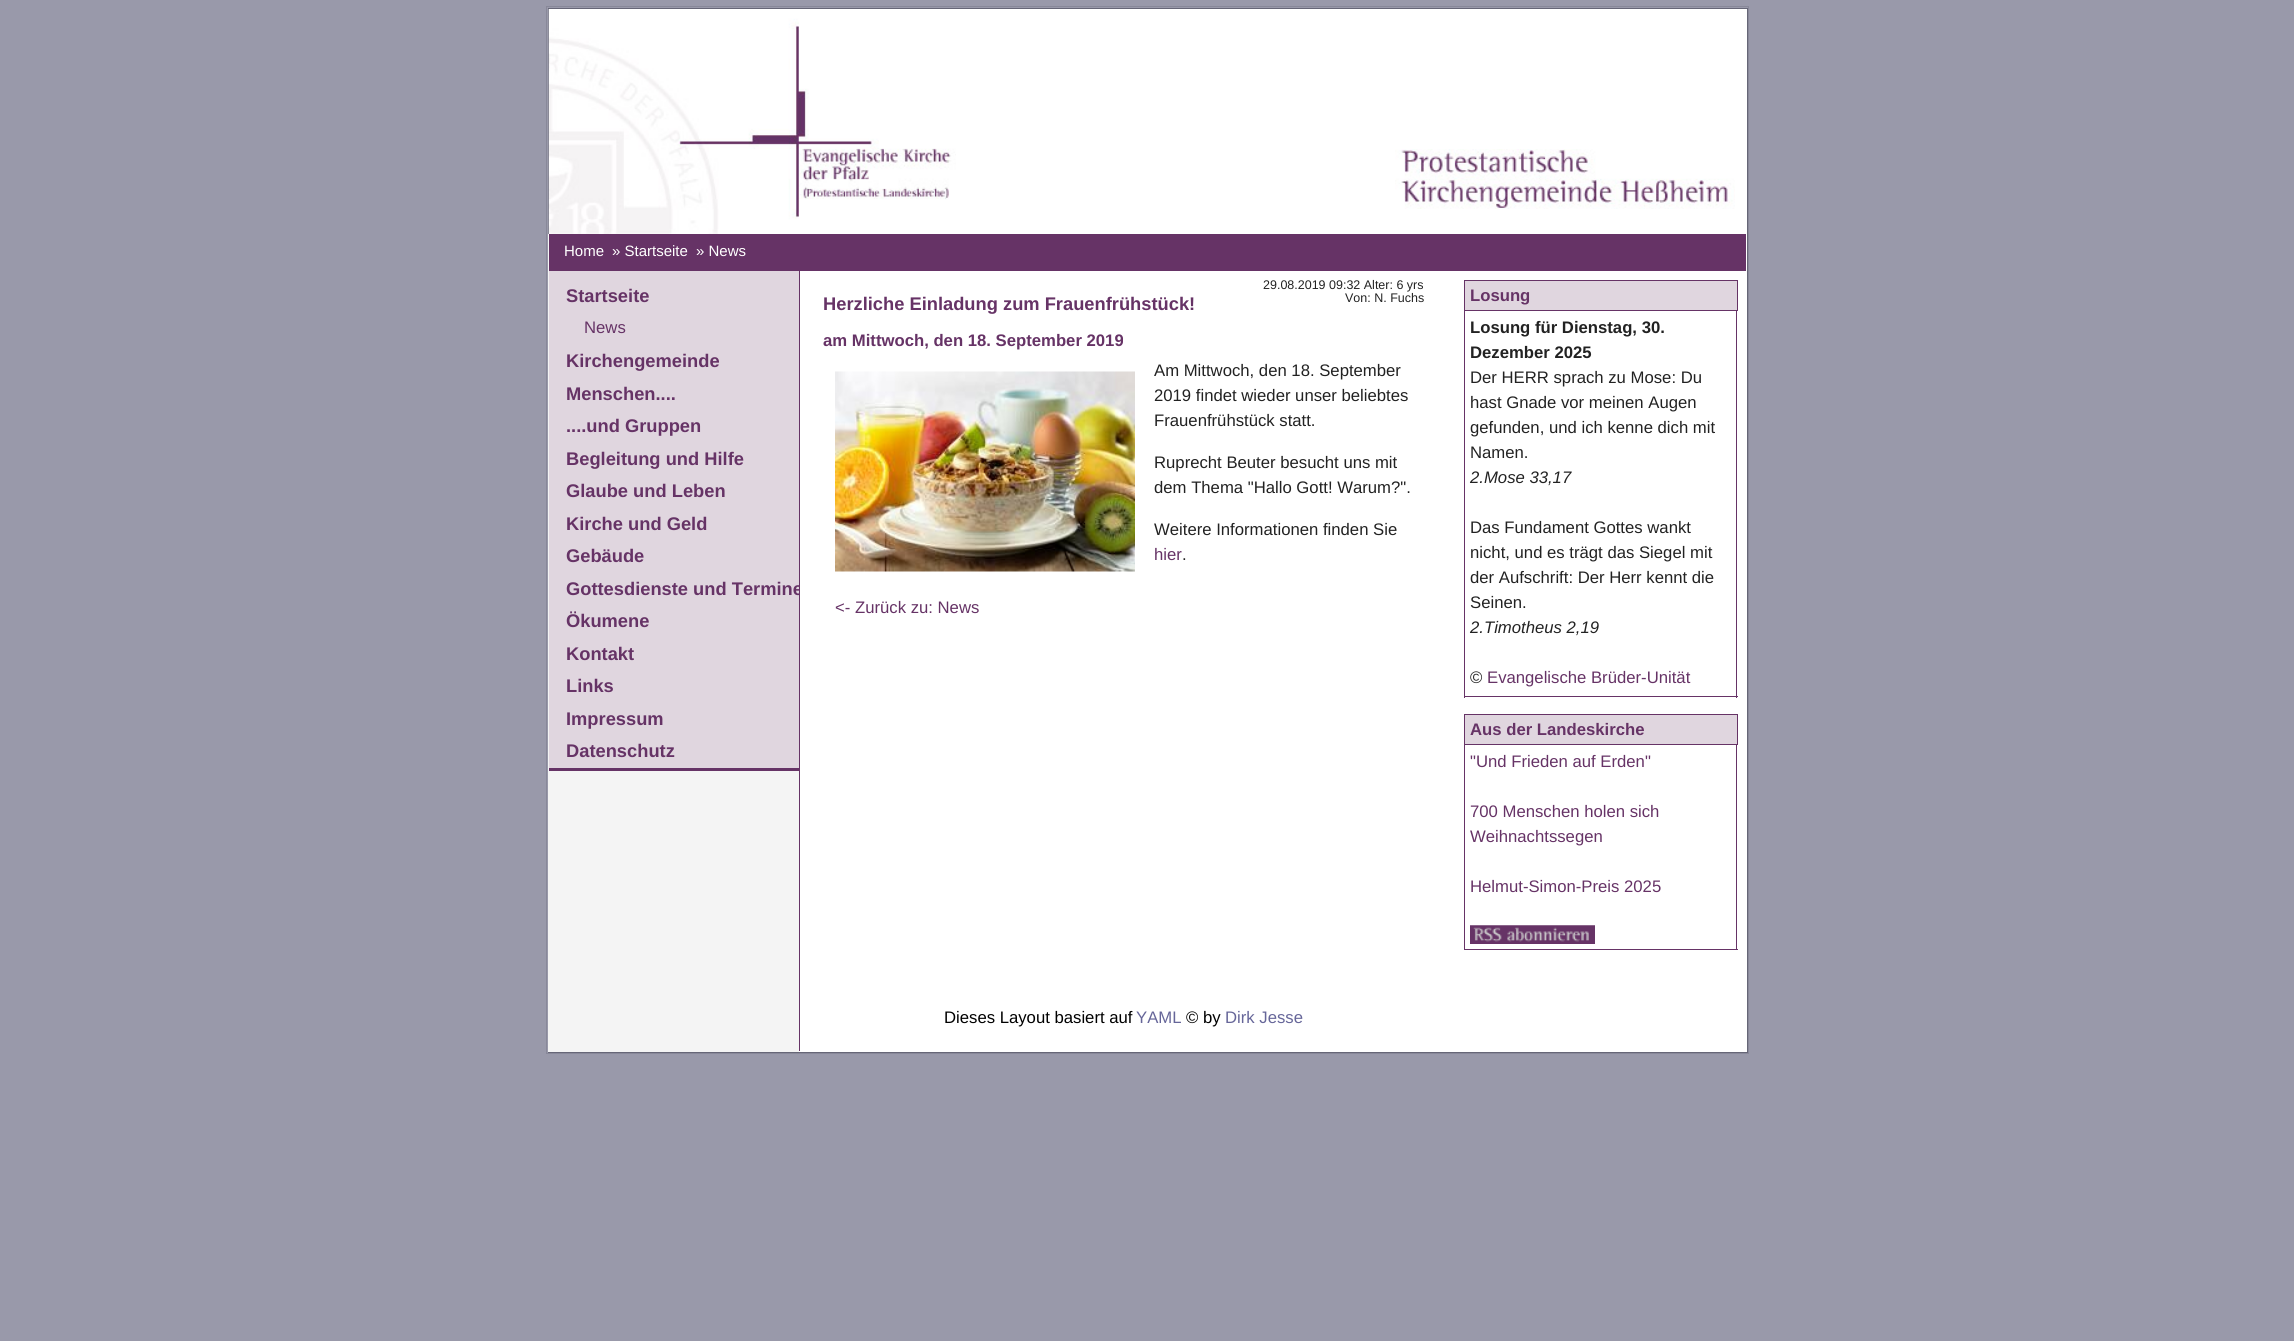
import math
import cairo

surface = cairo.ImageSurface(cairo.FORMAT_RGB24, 2294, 1341)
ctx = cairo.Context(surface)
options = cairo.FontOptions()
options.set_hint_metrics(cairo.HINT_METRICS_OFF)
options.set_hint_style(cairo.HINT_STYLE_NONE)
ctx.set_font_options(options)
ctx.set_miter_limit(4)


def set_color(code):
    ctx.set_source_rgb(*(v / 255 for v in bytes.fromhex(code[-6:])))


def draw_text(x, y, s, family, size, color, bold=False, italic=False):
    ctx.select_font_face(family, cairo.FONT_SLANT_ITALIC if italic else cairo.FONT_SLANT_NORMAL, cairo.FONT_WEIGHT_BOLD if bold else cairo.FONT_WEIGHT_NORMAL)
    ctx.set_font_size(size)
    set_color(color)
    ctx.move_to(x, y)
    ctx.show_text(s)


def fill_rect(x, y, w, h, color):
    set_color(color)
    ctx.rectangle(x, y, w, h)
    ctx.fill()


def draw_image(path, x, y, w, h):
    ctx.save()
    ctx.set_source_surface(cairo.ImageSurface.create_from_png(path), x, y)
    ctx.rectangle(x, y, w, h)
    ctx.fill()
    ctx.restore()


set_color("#9999aa")
ctx.paint()
ctx.rectangle(546.5, 6.5, 1202, 1047)
set_color("#888899")
ctx.set_line_width(1)
ctx.stroke()
fill_rect(799, 9, 948, 1043, "#ffffff")
ctx.rectangle(548.5, 8.5, 1199, 1044)
set_color("#666677")
ctx.stroke()
draw_image("assets/img1.png", 548, 9, 408, 225)
draw_image("assets/img2.png", 1395, 149, 340, 60)
fill_rect(548, 234, 251, 818, "#f4f4f4")
fill_rect(549, 234, 1197, 37, "#663366")
draw_text(564, 256, "Home", "Liberation Sans", 15, "#ffffff")
draw_text(612, 256, "» Startseite", "Liberation Sans", 15, "#ffffff")
draw_text(696, 256, "» News", "Liberation Sans", 15, "#ffffff")
fill_rect(549, 768, 250, 3, "#663366")
fill_rect(549, 271, 250, 497, "#e0d6df")
draw_text(566, 302, "Startseite", "Liberation Sans", 18.3, "#663366", bold=True)
draw_text(584, 333, "News", "Liberation Sans", 16.7, "#663366")
draw_text(566, 367, "Kirchengemeinde", "Liberation Sans", 18.3, "#663366", bold=True)
draw_text(566, 400, "Menschen....", "Liberation Sans", 18.3, "#663366", bold=True)
draw_text(566, 432, "....und Gruppen", "Liberation Sans", 18.3, "#663366", bold=True)
draw_text(566, 465, "Begleitung und Hilfe", "Liberation Sans", 18.3, "#663366", bold=True)
draw_text(566, 497, "Glaube und Leben", "Liberation Sans", 18.3, "#663366", bold=True)
draw_text(566, 530, "Kirche und Geld", "Liberation Sans", 18.3, "#663366", bold=True)
draw_text(566, 562, "Gebäude", "Liberation Sans", 18.3, "#663366", bold=True)
ctx.save()
ctx.rectangle(549, 280, 250, 488)
ctx.clip()
draw_text(566, 595, "Gottesdienste und Termine", "Liberation Sans", 18.3, "#663366", bold=True)
ctx.restore()
draw_text(566, 627, "Ökumene", "Liberation Sans", 18.3, "#663366", bold=True)
draw_text(566, 660, "Kontakt", "Liberation Sans", 18.3, "#663366", bold=True)
draw_text(566, 692, "Links", "Liberation Sans", 18.3, "#663366", bold=True)
draw_text(566, 725, "Impressum", "Liberation Sans", 18.3, "#663366", bold=True)
draw_text(566, 757, "Datenschutz", "Liberation Sans", 18.3, "#663366", bold=True)
fill_rect(799, 271, 1, 780, "#663366")
draw_text(1263, 289, "29.08.2019 09:32 Alter: 6 yrs", "Liberation Sans", 12.5, "#222222")
draw_text(1345, 302, "Von: N. Fuchs", "Liberation Sans", 12.5, "#222222")
draw_text(823, 310, "Herzliche Einladung zum Frauenfrühstück!", "Liberation Sans", 18.3, "#663366", bold=True)
draw_text(823, 346, "am Mittwoch, den 18. September 2019", "Liberation Sans", 16.7, "#663366", bold=True)
draw_image("assets/img3.png", 835, 371, 300, 201)
draw_text(1154, 376, "Am Mittwoch, den 18. September", "Liberation Sans", 16.7, "#222222")
draw_text(1154, 401, "2019 findet wieder unser beliebtes", "Liberation Sans", 16.7, "#222222")
draw_text(1154, 426, "Frauenfrühstück statt.", "Liberation Sans", 16.7, "#222222")
draw_text(1154, 468, "Ruprecht Beuter besucht uns mit", "Liberation Sans", 16.7, "#222222")
draw_text(1154, 493, "dem Thema \"Hallo Gott! Warum?\".", "Liberation Sans", 16.7, "#222222")
draw_text(1154, 535, "Weitere Informationen finden Sie", "Liberation Sans", 16.7, "#222222")
draw_text(1154, 560, "hier", "Liberation Sans", 16.7, "#663366")
draw_text(1182, 560, ".", "Liberation Sans", 16.7, "#222222")
draw_text(835, 613, "<- Zurück zu: News", "Liberation Sans", 16.7, "#663366")
draw_text(944, 1023, "Dieses Layout basiert auf", "Liberation Sans", 16.7, "#000000")
draw_text(1136, 1023, "YAML", "Liberation Sans", 16.7, "#666699")
draw_text(1186, 1023, "© by", "Liberation Sans", 16.7, "#000000")
draw_text(1225, 1023, "Dirk Jesse", "Liberation Sans", 16.7, "#666699")
set_color("#e0d6df")
ctx.rectangle(1464.5, 280.5, 273, 30)
ctx.fill_preserve()
set_color("#663366")
ctx.stroke()
draw_text(1470, 301, "Losung", "Liberation Sans", 16.7, "#663366", bold=True)
fill_rect(1736, 311, 1, 387, "#663366")
fill_rect(1464, 696, 274, 1, "#663366")
fill_rect(1464, 311, 1, 387, "#663366")
draw_text(1470, 333, "Losung für Dienstag, 30.", "Liberation Sans", 16.7, "#222222", bold=True)
draw_text(1470, 358, "Dezember 2025", "Liberation Sans", 16.7, "#222222", bold=True)
draw_text(1470, 383, "Der HERR sprach zu Mose: Du", "Liberation Sans", 16.7, "#222222")
draw_text(1470, 408, "hast Gnade vor meinen Augen", "Liberation Sans", 16.7, "#222222")
draw_text(1470, 433, "gefunden, und ich kenne dich mit", "Liberation Sans", 16.7, "#222222")
draw_text(1470, 458, "Namen.", "Liberation Sans", 16.7, "#222222")
draw_text(1470, 483, "2.Mose 33,17", "Liberation Sans", 16.7, "#222222", italic=True)
draw_text(1470, 533, "Das Fundament Gottes wankt", "Liberation Sans", 16.7, "#222222")
draw_text(1470, 558, "nicht, und es trägt das Siegel mit", "Liberation Sans", 16.7, "#222222")
draw_text(1470, 583, "der Aufschrift: Der Herr kennt die", "Liberation Sans", 16.7, "#222222")
draw_text(1470, 608, "Seinen.", "Liberation Sans", 16.7, "#222222")
draw_text(1470, 633, "2.Timotheus 2,19", "Liberation Sans", 16.7, "#222222", italic=True)
draw_text(1470, 683, "©", "Liberation Sans", 16.7, "#222222")
draw_text(1487, 683, "Evangelische Brüder-Unität", "Liberation Sans", 16.7, "#663366")
set_color("#e0d6df")
ctx.rectangle(1464.5, 714.5, 273, 30)
ctx.fill_preserve()
set_color("#663366")
ctx.stroke()
draw_text(1470, 735, "Aus der Landeskirche", "Liberation Sans", 16.7, "#663366", bold=True)
fill_rect(1736, 745, 1, 205, "#663366")
fill_rect(1464, 949, 274, 1, "#663366")
fill_rect(1464, 745, 1, 205, "#663366")
draw_text(1470, 767, "\"Und Frieden auf Erden\"", "Liberation Sans", 16.7, "#663366")
draw_text(1470, 817, "700 Menschen holen sich", "Liberation Sans", 16.7, "#663366")
draw_text(1470, 842, "Weihnachtssegen", "Liberation Sans", 16.7, "#663366")
draw_text(1470, 892, "Helmut-Simon-Preis 2025", "Liberation Sans", 16.7, "#663366")
draw_image("assets/img4.png", 1470, 925, 125, 19)
surface.write_to_png("output.png")
